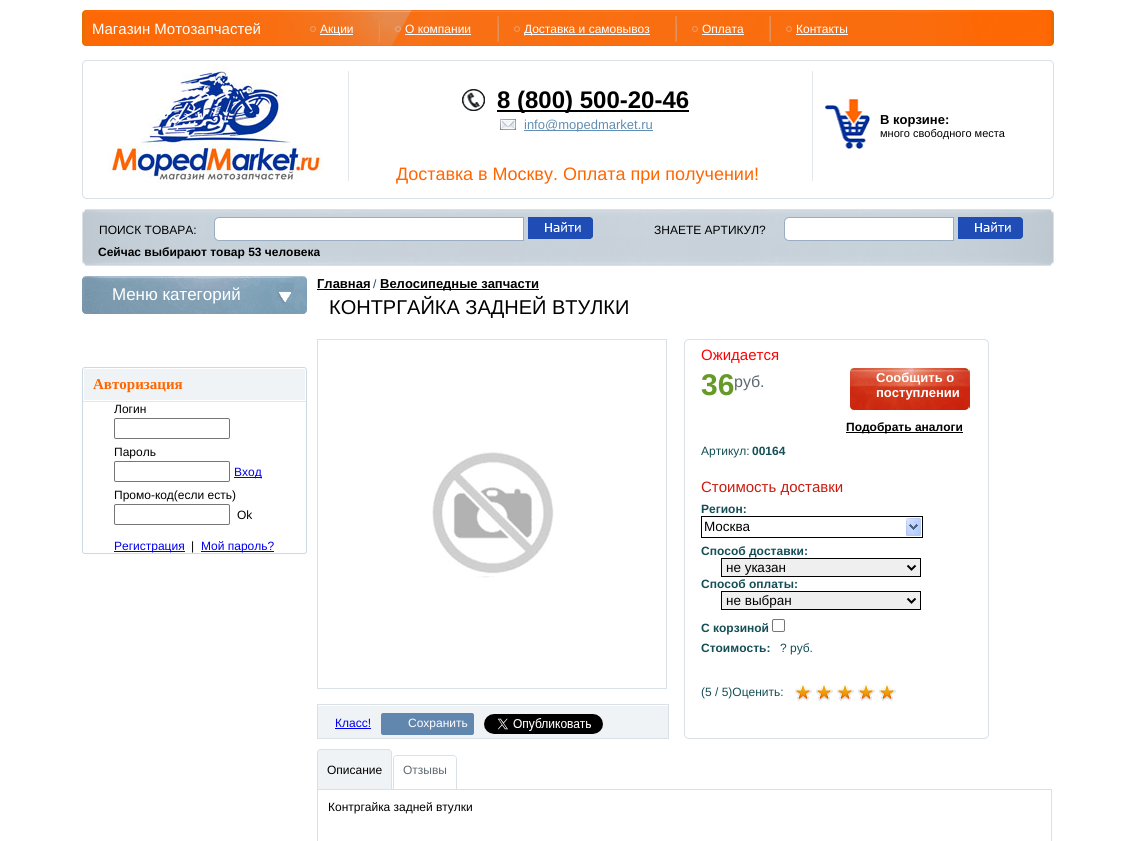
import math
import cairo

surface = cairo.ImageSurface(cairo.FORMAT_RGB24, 1135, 841)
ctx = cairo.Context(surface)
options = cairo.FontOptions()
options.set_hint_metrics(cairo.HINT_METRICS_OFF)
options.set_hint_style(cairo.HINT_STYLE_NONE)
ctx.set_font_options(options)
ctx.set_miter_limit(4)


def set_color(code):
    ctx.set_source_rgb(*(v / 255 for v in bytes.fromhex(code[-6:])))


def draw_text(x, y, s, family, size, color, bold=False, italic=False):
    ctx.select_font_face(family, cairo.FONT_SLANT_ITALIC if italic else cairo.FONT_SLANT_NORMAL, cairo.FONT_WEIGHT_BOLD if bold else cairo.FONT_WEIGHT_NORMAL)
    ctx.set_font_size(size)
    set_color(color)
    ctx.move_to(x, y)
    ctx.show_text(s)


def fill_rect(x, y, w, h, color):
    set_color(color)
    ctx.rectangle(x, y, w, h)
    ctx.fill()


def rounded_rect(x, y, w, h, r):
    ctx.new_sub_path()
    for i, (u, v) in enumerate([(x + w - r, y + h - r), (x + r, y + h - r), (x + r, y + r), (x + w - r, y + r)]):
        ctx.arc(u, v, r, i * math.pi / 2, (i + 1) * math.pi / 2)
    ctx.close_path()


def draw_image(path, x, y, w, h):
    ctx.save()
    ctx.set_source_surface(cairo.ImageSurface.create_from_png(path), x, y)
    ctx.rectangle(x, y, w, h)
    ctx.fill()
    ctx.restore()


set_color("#ffffff")
ctx.paint()
fill_rect(1047, 10, 4, 36, "#ff6600")
draw_image("assets/img1.png", 85, 10, 962, 36)
draw_image("assets/img2.png", 82, 10, 3, 36)
draw_text(92, 34, "Магазин Мотозапчастей", "Liberation Sans", 15, "#ffffff")
draw_image("assets/img3.png", 310, 26, 6, 6)
fill_rect(320, 34, 33, 1, "#ffffff")
draw_text(320, 33, "Акции", "Liberation Sans", 12, "#ffffff")
draw_image("assets/img4.png", 378, 19, 2, 23)
draw_image("assets/img5.png", 395, 26, 6, 6)
draw_text(405, 33, "О компании", "Liberation Sans", 12, "#ffffff")
fill_rect(405, 34, 66, 1, "#ffffff")
draw_image("assets/img6.png", 497, 16, 2, 26)
draw_image("assets/img7.png", 514, 26, 6, 6)
fill_rect(524, 34, 126, 1, "#ffffff")
draw_text(524, 33, "Доставка и самовывоз", "Liberation Sans", 12, "#ffffff")
draw_image("assets/img6.png", 675, 16, 2, 26)
draw_image("assets/img8.png", 692, 26, 6, 6)
draw_text(702, 33, "Оплата", "Liberation Sans", 12, "#ffffff")
fill_rect(702, 34, 42, 1, "#ffffff")
draw_image("assets/img6.png", 769, 16, 2, 26)
draw_image("assets/img9.png", 786, 26, 6, 6)
draw_text(796, 33, "Контакты", "Liberation Sans", 12, "#ffffff")
fill_rect(796, 34, 52, 1, "#ffffff")
draw_image("assets/img10.png", 1051, 10, 3, 36)
rounded_rect(82.5, 60.5, 971, 138, 4.5)
set_color("#d9e0e6")
ctx.set_line_width(1)
ctx.stroke()
draw_image("assets/img11.png", 108, 66, 215, 117)
fill_rect(348, 71, 1, 110, "#e1e8ec")
draw_image("assets/img12.png", 462, 89, 23, 22)
fill_rect(497, 110, 192, 2, "#000000")
draw_text(497, 108, "8 (800) 500-20-46", "Liberation Sans", 24, "#000000", bold=True)
draw_image("assets/img13.png", 500, 119, 16, 11)
fill_rect(524, 130, 129, 1, "#618eb2")
draw_text(524, 129, "info@mopedmarket.ru", "Liberation Sans", 13, "#618eb2")
fill_rect(812, 71, 1, 110, "#e1e8ec")
draw_image("assets/img14.png", 825, 99, 45, 50)
draw_text(880, 124, "В корзине:", "Liberation Sans", 13, "#000000", bold=True)
draw_text(880, 137, "много свободного места", "Liberation Sans", 11, "#000000")
draw_text(396, 180, "Доставка в Москву. Оплата при получении!", "Liberation Sans", 18, "#ff6600")
rounded_rect(82.5, 209.5, 971, 56, 4.5)
set_color("#d9e0e6")
ctx.stroke()
draw_image("assets/img15.png", 83, 210, 970, 55)
draw_text(99, 234, "ПОИСК ТОВАРА:", "Liberation Sans", 12, "#000000")
set_color("#ffffff")
ctx.new_path()
ctx.move_to(219, 217.5)
ctx.line_to(523.5, 217.5)
ctx.line_to(523.5, 240.5)
ctx.line_to(219, 240.5)
ctx.curve_to(216.5, 240.5, 214.5, 238.5, 214.5, 236)
ctx.line_to(214.5, 222)
ctx.curve_to(214.5, 219.5, 216.5, 217.5, 219, 217.5)
ctx.close_path()
ctx.fill_preserve()
set_color("#9aadc2")
ctx.stroke()
draw_image("assets/img16.png", 528, 217, 65, 22)
draw_text(654, 234, "ЗНАЕТЕ АРТИКУЛ?", "Liberation Sans", 12, "#000000")
set_color("#ffffff")
ctx.new_path()
ctx.move_to(789, 217.5)
ctx.line_to(953.5, 217.5)
ctx.line_to(953.5, 240.5)
ctx.line_to(789, 240.5)
ctx.curve_to(786.5, 240.5, 784.5, 238.5, 784.5, 236)
ctx.line_to(784.5, 222)
ctx.curve_to(784.5, 219.5, 786.5, 217.5, 789, 217.5)
ctx.close_path()
ctx.fill_preserve()
set_color("#9aadc2")
ctx.stroke()
draw_image("assets/img16.png", 958, 217, 65, 22)
draw_text(98, 256, "Сейчас выбирают товар 53 человека", "Liberation Sans", 12, "#000000", bold=True)
draw_image("assets/img17.png", 82, 276, 225, 38)
draw_text(112, 300, "Меню категорий", "Liberation Sans", 17, "#ffffff")
rounded_rect(82.5, 367.5, 224, 186, 2.5)
set_color("#ccdae3")
ctx.stroke()
fill_rect(84, 369, 221, 31, "#f0f3f5")
draw_text(93, 389, "Авторизация", "Liberation Serif", 15, "#ff6600", bold=True)
fill_rect(83, 401, 223, 1, "#e1e8eb")
draw_text(114, 413, "Логин", "Liberation Sans", 12, "#000000")
rounded_rect(114.5, 418.5, 115, 20, 1.5)
set_color("#767676")
ctx.stroke()
draw_text(114, 456, "Пароль", "Liberation Sans", 12, "#000000")
rounded_rect(114.5, 461.5, 115, 20, 1.5)
set_color("#767676")
ctx.stroke()
fill_rect(234, 477, 28, 1, "#0000ee")
draw_text(234, 476, "Вход", "Liberation Sans", 12, "#0000ee")
draw_text(114, 499, "Промо-код(если есть)", "Liberation Sans", 12, "#000000")
rounded_rect(114.5, 504.5, 115, 20, 1.5)
set_color("#767676")
ctx.stroke()
draw_text(237, 519, "Ok", "Liberation Sans", 12, "#000000")
fill_rect(114, 551, 71, 1, "#0000ee")
draw_text(114, 550, "Регистрация", "Liberation Sans", 12, "#0000ee")
draw_text(191, 550, "|", "Liberation Sans", 12, "#000000")
fill_rect(201, 551, 73, 1, "#0000ee")
draw_text(201, 550, "Мой пароль?", "Liberation Sans", 12, "#0000ee")
draw_text(317, 288, "Главная", "Liberation Sans", 13, "#000000", bold=True)
fill_rect(317, 289, 53, 1, "#000000")
draw_text(373, 288, "/", "Liberation Sans", 12, "#144e56")
fill_rect(380, 289, 159, 1, "#000000")
draw_text(380, 288, "Велосипедные запчасти", "Liberation Sans", 13, "#000000", bold=True)
draw_text(329, 314, "КОНТРГАЙКА ЗАДНЕЙ ВТУЛКИ", "Liberation Sans", 20, "#000000")
rounded_rect(684.5, 339.5, 304, 399, 4.5)
set_color("#d9e0e6")
ctx.stroke()
draw_text(701, 360, "Ожидается", "Liberation Sans", 15, "#ff0000")
draw_text(701, 395, "36", "Liberation Sans", 30, "#669a28", bold=True)
draw_text(734, 387, "руб.", "Liberation Sans", 16, "#5e6a72")
draw_image("assets/img18.png", 850, 368, 120, 42)
draw_text(876, 382, "Сообщить о", "Liberation Sans", 13, "#ffffff", bold=True)
draw_text(876, 397, "поступлении", "Liberation Sans", 13, "#ffffff", bold=True)
fill_rect(846, 432, 117, 1, "#000000")
draw_text(846, 431, "Подобрать аналоги", "Liberation Sans", 12, "#000000", bold=True)
draw_text(701, 455, "Артикул:", "Liberation Sans", 12, "#144e56")
draw_text(752, 455, "00164", "Liberation Sans", 12, "#144e56", bold=True)
draw_text(701, 492, "Стоимость доставки", "Liberation Sans", 15, "#c91c10")
draw_text(701, 513, "Регион:", "Liberation Sans", 12, "#144e56", bold=True)
ctx.rectangle(701.5, 516.5, 221, 21)
set_color("#000000")
ctx.stroke()
draw_text(704, 531, "Москва", "Liberation Sans", 13.5, "#000000")
draw_image("assets/img19.png", 906, 518, 15, 18)
draw_text(701, 555, "Способ доставки:", "Liberation Sans", 12, "#144e56", bold=True)
set_color("#efefef")
ctx.rectangle(721.5, 558.5, 199, 18)
ctx.fill_preserve()
set_color("#000000")
ctx.stroke()
ctx.new_path()
ctx.move_to(907.5, 565.5)
ctx.line_to(911.5, 569.5)
ctx.line_to(915.5, 565.5)
ctx.set_line_width(2)
ctx.stroke()
draw_text(726, 572, "не указан", "Liberation Sans", 13.5, "#000000")
draw_text(701, 588, "Способ оплаты:", "Liberation Sans", 12, "#144e56", bold=True)
set_color("#efefef")
ctx.rectangle(721.5, 591.5, 199, 18)
ctx.fill_preserve()
set_color("#000000")
ctx.set_line_width(1)
ctx.stroke()
ctx.new_path()
ctx.move_to(907.5, 598.5)
ctx.line_to(911.5, 602.5)
ctx.line_to(915.5, 598.5)
ctx.set_line_width(2)
ctx.stroke()
draw_text(726, 605, "не выбран", "Liberation Sans", 13.5, "#000000")
draw_text(701, 632, "С корзиной", "Liberation Sans", 12, "#144e56", bold=True)
rounded_rect(772.5, 619.5, 12, 12, 1.5)
set_color("#767676")
ctx.set_line_width(1)
ctx.stroke()
draw_text(701, 652, "Стоимость:", "Liberation Sans", 12, "#144e56", bold=True)
draw_text(780, 652, "? руб.", "Liberation Sans", 12, "#144e56")
draw_text(701, 696, "(5 / 5)Оценить:", "Liberation Sans", 12, "#144e56")
draw_image("assets/img20.png", 795, 685, 101, 16)
ctx.rectangle(317.5, 339.5, 349, 349)
set_color("#d9e0e6")
ctx.stroke()
draw_image("assets/img21.png", 432, 451, 122, 127)
fill_rect(318, 706, 350, 32, "#f0f3f5")
ctx.rectangle(317.5, 704.5, 351, 34)
set_color("#d9e0e6")
ctx.stroke()
draw_text(335, 727, "Класс!", "Liberation Sans", 12, "#0000ee")
fill_rect(335, 728, 36, 1, "#0000ee")
set_color("#6287ae")
ctx.new_path()
ctx.move_to(383, 713)
ctx.line_to(408, 713)
ctx.line_to(408, 735)
ctx.line_to(383, 735)
ctx.curve_to(382, 735, 381, 734, 381, 733)
ctx.line_to(381, 715)
ctx.curve_to(381, 714, 382, 713, 383, 713)
ctx.close_path()
ctx.fill()
ctx.new_path()
ctx.move_to(408, 713)
ctx.line_to(472, 713)
ctx.curve_to(473, 713, 474, 714, 474, 715)
ctx.line_to(474, 733)
ctx.curve_to(474, 734, 473, 735, 472, 735)
ctx.line_to(408, 735)
ctx.close_path()
ctx.fill()
draw_text(408, 727, "Сохранить", "Liberation Sans", 12, "#ffffff")
draw_image("assets/img22.png", 484, 714, 119, 20)
set_color("#f0f3f5")
ctx.new_path()
ctx.move_to(321, 749)
ctx.line_to(388, 749)
ctx.curve_to(390, 749, 392, 751, 392, 753)
ctx.line_to(392, 789)
ctx.line_to(317, 789)
ctx.line_to(317, 753)
ctx.curve_to(317, 751, 319, 749, 321, 749)
ctx.close_path()
ctx.fill()
set_color("#d9e0e6")
ctx.set_fill_rule(cairo.FILL_RULE_EVEN_ODD)
ctx.new_path()
ctx.move_to(321, 749)
ctx.line_to(388, 749)
ctx.curve_to(390, 749, 392, 751, 392, 753)
ctx.line_to(392, 789)
ctx.line_to(317, 789)
ctx.line_to(317, 753)
ctx.curve_to(317, 751, 319, 749, 321, 749)
ctx.close_path()
ctx.move_to(321, 750)
ctx.line_to(388, 750)
ctx.curve_to(390, 750, 391, 751, 391, 753)
ctx.line_to(391, 789)
ctx.line_to(318, 789)
ctx.line_to(318, 753)
ctx.curve_to(318, 751, 319, 750, 321, 750)
ctx.close_path()
ctx.fill()
draw_text(327, 774, "Описание", "Liberation Sans", 12, "#000000")
set_color("#d9e0e6")
ctx.new_path()
ctx.move_to(397, 755)
ctx.line_to(453, 755)
ctx.curve_to(455, 755, 457, 757, 457, 759)
ctx.line_to(457, 789)
ctx.line_to(393, 789)
ctx.line_to(393, 759)
ctx.curve_to(393, 757, 395, 755, 397, 755)
ctx.close_path()
ctx.move_to(397, 756)
ctx.line_to(453, 756)
ctx.curve_to(455, 756, 456, 757, 456, 759)
ctx.line_to(456, 789)
ctx.line_to(394, 789)
ctx.line_to(394, 759)
ctx.curve_to(394, 757, 395, 756, 397, 756)
ctx.close_path()
ctx.fill()
draw_text(403, 774, "Отзывы", "Liberation Sans", 12, "#5e6a72")
ctx.rectangle(317.5, 789.5, 734, 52)
set_color("#d9e0e6")
ctx.stroke()
draw_text(328, 811, "Контргайка задней втулки", "Liberation Sans", 12, "#000000")
surface.write_to_png("output.png")
